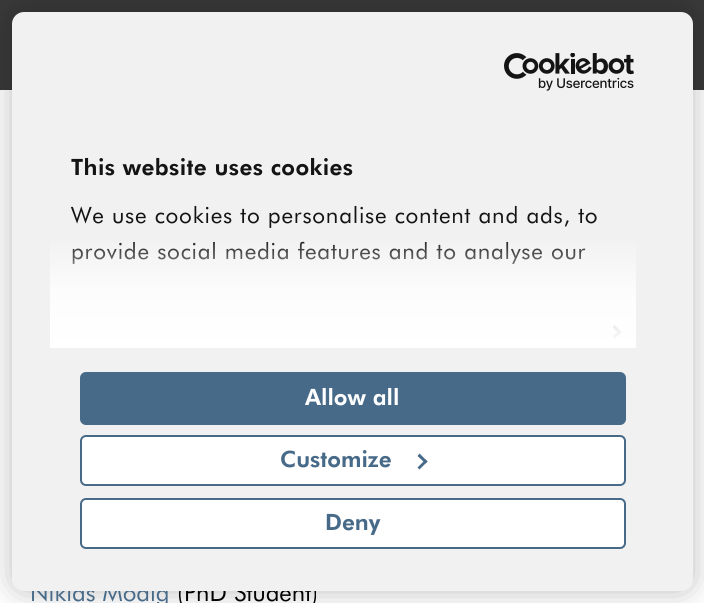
import math
import cairo

surface = cairo.ImageSurface(cairo.FORMAT_RGB24, 704, 603)
ctx = cairo.Context(surface)
options = cairo.FontOptions()
options.set_hint_metrics(cairo.HINT_METRICS_OFF)
options.set_hint_style(cairo.HINT_STYLE_NONE)
ctx.set_font_options(options)
ctx.set_miter_limit(4)


def set_color(code):
    ctx.set_source_rgb(*(v / 255 for v in bytes.fromhex(code[-6:])))


def draw_text(x, y, s, family, size, color, bold=False, italic=False):
    ctx.select_font_face(family, cairo.FONT_SLANT_ITALIC if italic else cairo.FONT_SLANT_NORMAL, cairo.FONT_WEIGHT_BOLD if bold else cairo.FONT_WEIGHT_NORMAL)
    ctx.set_font_size(size)
    set_color(color)
    ctx.move_to(x, y)
    ctx.show_text(s)


def draw_spaced(x, y, s, letter, word):
    ctx.move_to(x, y)
    for ch in s:
        ctx.show_text(ch)
        ctx.rel_move_to(letter + word * (ch == ' '), 0)


def fill_rect(x, y, w, h, color):
    set_color(color)
    ctx.rectangle(x, y, w, h)
    ctx.fill()


def rounded_rect(x, y, w, h, r):
    ctx.new_sub_path()
    for i, (u, v) in enumerate([(x + w - r, y + h - r), (x + r, y + h - r), (x + r, y + r), (x + w - r, y + r)]):
        ctx.arc(u, v, r, i * math.pi / 2, (i + 1) * math.pi / 2)
    ctx.close_path()


def draw_shadow(x, y, w, h, r, blur, alpha):
    ctx.push_group_with_content(cairo.CONTENT_ALPHA)
    ctx.set_operator(cairo.OPERATOR_SOURCE)
    for i in range(15, -16, -2):
        e = blur * i / 6
        if min(w, h) + 2 * e > 0:
            ctx.set_source_rgba(0, 0, 0, alpha * math.erfc((i - 1) / 8.5) / 2)
            rounded_rect(x - e, y - e, w + 2 * e, h + 2 * e, max(0, min(r + e + blur * .6, min(w, h) / 2 + e)))
            ctx.fill()
    ctx.mask(ctx.pop_group())


def draw_image(path, x, y, w, h):
    ctx.save()
    ctx.set_source_surface(cairo.ImageSurface.create_from_png(path), x, y)
    ctx.rectangle(x, y, w, h)
    ctx.fill()
    ctx.restore()


set_color("#ffffff")
ctx.paint()
fill_rect(0, 0, 704, 90, "#393939")
set_color("#000000")
draw_shadow(12, 12, 681, 579, 12, 15, 0.26)
draw_text(30, 601, "Niklas Modig", "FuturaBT", 24, "#476a89")
draw_text(177, 601, "(PhD Student)", "FuturaBT", 24, "#000000")
set_color("#f1f1f1")
rounded_rect(12, 12, 681, 579, 12)
ctx.fill()
draw_image("assets/img1.png", 504, 53, 130, 38)
ctx.select_font_face("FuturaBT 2")
ctx.set_font_size(22.5)
set_color("#141414")
draw_spaced(71, 175, "This website uses cookies", 0.4, 0)
ctx.select_font_face("FuturaBT")
draw_spaced(71, 223, "We use cookies to personalise content and ads, to", 0.75, 0)
draw_spaced(71, 259, "provide social media features and to analyse our", 0.75, 0)
ctx.new_path()
ctx.move_to(614.5, 325)
ctx.line_to(621.5, 332)
ctx.line_to(619.5, 334)
ctx.line_to(612.5, 327)
ctx.close_path()
ctx.fill()
ctx.new_path()
ctx.move_to(619.5, 330)
ctx.line_to(621.5, 332)
ctx.line_to(614.5, 339)
ctx.line_to(612.5, 336.5)
ctx.close_path()
ctx.fill()
gradient = cairo.LinearGradient(343, 348, 343, 236)
gradient.add_color_stop_rgba(0, 1, 1, 1, 1)
gradient.add_color_stop_rgba(0.5, 1, 1, 1, 0.8)
gradient.add_color_stop_rgba(1, 1, 1, 1, 0)
ctx.set_source(gradient)
ctx.rectangle(50, 241, 586, 107)
ctx.fill()
set_color("#476a89")
rounded_rect(81, 373, 544, 51, 5)
ctx.fill_preserve()
ctx.stroke()
draw_text(305, 405, "Allow all", "FuturaBT 2", 22.5, "#ffffff")
rounded_rect(81, 436, 544, 49, 5)
ctx.fill_preserve()
set_color("#476a89")
ctx.stroke()
draw_text(280, 467, "Customize", "FuturaBT 2", 22.5, "#476a89")
ctx.new_path()
ctx.move_to(419.5, 453.5)
ctx.line_to(427.5, 461.5)
ctx.line_to(425.5, 463.5)
ctx.line_to(417.5, 456)
ctx.close_path()
ctx.fill()
ctx.new_path()
ctx.move_to(425.5, 459.5)
ctx.line_to(427.5, 461.5)
ctx.line_to(419.5, 469.5)
ctx.line_to(417.5, 467.5)
ctx.close_path()
ctx.fill()
set_color("#ffffff")
rounded_rect(81, 499, 544, 49, 5)
ctx.fill_preserve()
set_color("#476a89")
ctx.stroke()
draw_text(325, 530, "Deny", "FuturaBT 2", 22.5, "#476a89")
surface.write_to_png("output.png")
